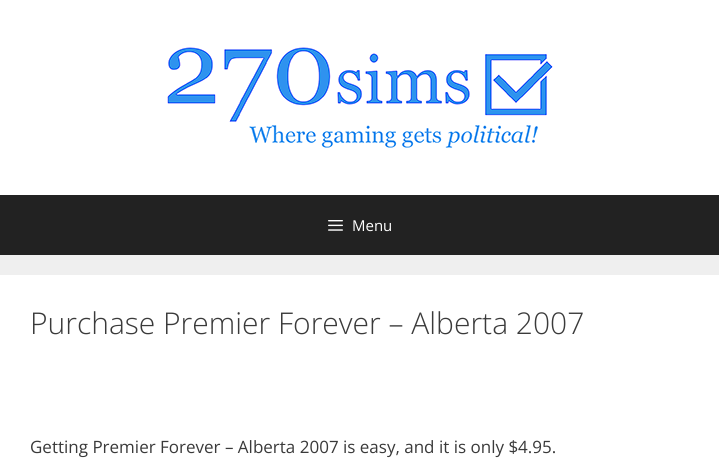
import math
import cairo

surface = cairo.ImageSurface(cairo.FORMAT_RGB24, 719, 473)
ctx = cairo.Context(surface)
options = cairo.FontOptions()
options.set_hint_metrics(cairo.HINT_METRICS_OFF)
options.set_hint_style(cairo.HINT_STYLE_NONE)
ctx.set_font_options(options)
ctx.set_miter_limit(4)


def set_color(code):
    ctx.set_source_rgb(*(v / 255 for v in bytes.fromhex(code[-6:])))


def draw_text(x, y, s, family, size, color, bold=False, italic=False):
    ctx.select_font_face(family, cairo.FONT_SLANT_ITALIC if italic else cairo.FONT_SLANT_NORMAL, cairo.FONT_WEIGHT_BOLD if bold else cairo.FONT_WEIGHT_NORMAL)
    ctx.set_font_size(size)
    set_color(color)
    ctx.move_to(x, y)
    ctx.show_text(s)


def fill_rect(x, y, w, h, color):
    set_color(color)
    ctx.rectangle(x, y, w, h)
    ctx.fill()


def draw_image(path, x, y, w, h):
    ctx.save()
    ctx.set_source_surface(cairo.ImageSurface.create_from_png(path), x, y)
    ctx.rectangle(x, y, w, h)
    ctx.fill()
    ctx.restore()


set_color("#efefef")
ctx.paint()
fill_rect(0, 0, 719, 195, "#ffffff")
draw_image("assets/img1.png", 167, 47, 386, 101)
fill_rect(0, 195, 719, 60, "#222222")
draw_image("assets/img2.png", 328, 220, 15, 11)
draw_text(352, 231, "Menu", "Open Sans", 15, "#ffffff")
fill_rect(0, 275, 719, 198, "#ffffff")
draw_text(30, 334, "Purchase Premier Forever – Alberta 2007", "Open Sans Light", 30, "#3a3a3a")
draw_text(30, 453, "Getting Premier Forever – Alberta 2007 is easy, and it is only $4.95.", "Open Sans", 17, "#3a3a3a")
surface.write_to_png("output.png")
